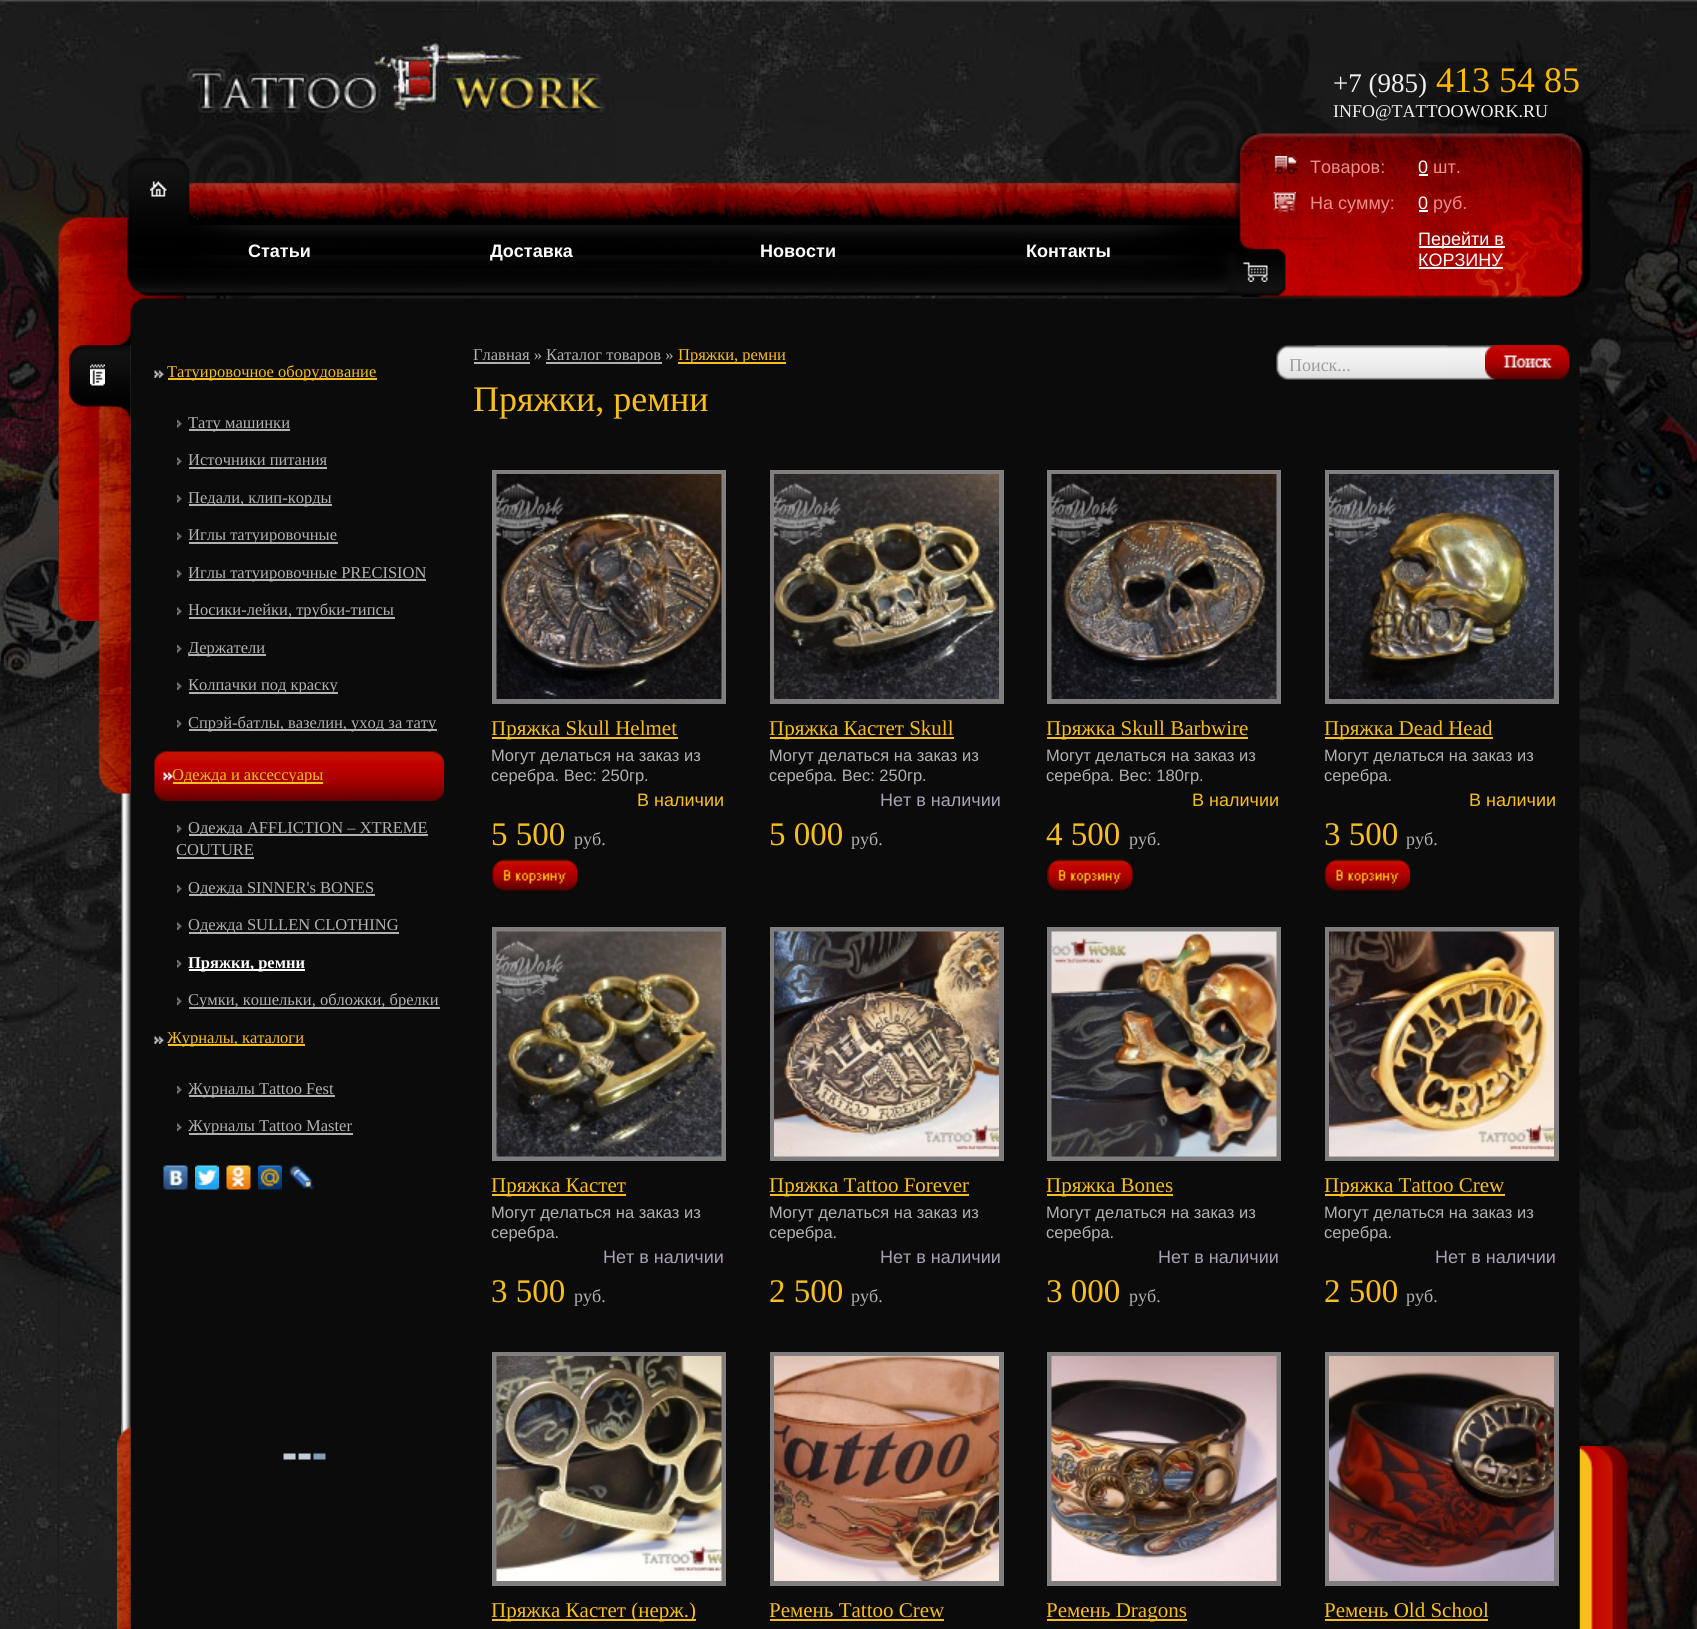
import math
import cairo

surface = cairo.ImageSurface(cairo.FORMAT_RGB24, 1697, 1629)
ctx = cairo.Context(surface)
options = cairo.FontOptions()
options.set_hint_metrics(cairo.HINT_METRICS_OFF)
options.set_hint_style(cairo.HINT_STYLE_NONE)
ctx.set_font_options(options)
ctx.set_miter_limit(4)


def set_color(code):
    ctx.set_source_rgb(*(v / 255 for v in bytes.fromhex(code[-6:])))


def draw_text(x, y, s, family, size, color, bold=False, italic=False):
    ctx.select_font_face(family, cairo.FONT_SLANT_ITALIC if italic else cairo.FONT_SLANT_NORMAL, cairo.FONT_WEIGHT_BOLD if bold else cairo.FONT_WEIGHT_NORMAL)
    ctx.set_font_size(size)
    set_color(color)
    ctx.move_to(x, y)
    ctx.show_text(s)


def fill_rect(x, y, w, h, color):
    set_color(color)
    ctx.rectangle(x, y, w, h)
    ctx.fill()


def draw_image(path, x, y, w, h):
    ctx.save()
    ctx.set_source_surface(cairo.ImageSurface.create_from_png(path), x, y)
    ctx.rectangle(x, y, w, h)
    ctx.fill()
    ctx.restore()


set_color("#ffffff")
ctx.paint()
draw_image("assets/img1.png", 0, 0, 1697, 1629)
draw_text(1333, 92, "+7 (985)", "Liberation Serif", 27, "#efefef")
draw_text(1436, 92, "413 54 85", "Liberation Serif", 36, "#ffba00")
draw_text(1333, 117, "INFO@TATTOOWORK.RU", "Liberation Serif", 18, "#efefef")
draw_image("assets/img2.png", 58, 133, 1532, 488)
draw_image("assets/img3.png", 150, 181, 17, 16)
draw_image("assets/img4.png", 1273, 156, 25, 18)
draw_text(1310, 173, "Товаров:", "Liberation Sans", 18, "#ee8d8d")
draw_text(1418, 173, "0", "Liberation Sans", 18, "#ffffff")
fill_rect(1419, 174, 9, 2, "#ffffff")
draw_text(1433, 173, "шт.", "Liberation Sans", 18, "#ee8d8d")
draw_image("assets/img5.png", 1273, 192, 23, 21)
draw_text(1310, 209, "На сумму:", "Liberation Sans", 18, "#ee8d8d")
draw_text(1418, 209, "0", "Liberation Sans", 18, "#ffffff")
fill_rect(1419, 210, 9, 2, "#ffffff")
draw_text(1433, 209, "руб.", "Liberation Sans", 18, "#ee8d8d")
fill_rect(1419, 246, 86, 2, "#ffffff")
draw_text(1418, 245, "Перейти в", "Liberation Sans", 18, "#ffffff")
draw_text(1418, 266, "КОРЗИНУ", "Liberation Sans", 18, "#ffffff")
fill_rect(1419, 267, 84, 2, "#ffffff")
draw_image("assets/img6.png", 1243, 262, 25, 20)
draw_text(248, 257, "Статьи", "Liberation Sans", 18, "#ffffff", bold=True)
draw_text(490, 257, "Доставка", "Liberation Sans", 18, "#ffffff", bold=True)
draw_text(760, 257, "Новости", "Liberation Sans", 18, "#ffffff", bold=True)
draw_text(1026, 257, "Контакты", "Liberation Sans", 18, "#ffffff", bold=True)
draw_image("assets/img7.png", 116, 298, 1459, 47)
draw_image("assets/img8.png", 1579, 1446, 49, 183)
draw_image("assets/img9.png", 58, 345, 1522, 1284)
draw_image("assets/img10.png", 117, 1426, 14, 203)
draw_image("assets/img11.png", 69, 345, 62, 449)
draw_image("assets/img12.png", 90, 364, 15, 22)
draw_image("assets/img13.png", 154, 370, 10, 8)
fill_rect(168, 378, 209, 2, "#f8be1c")
draw_text(167, 377, "Татуировочное оборудование", "Liberation Serif", 16.5, "#f8be1c")
draw_image("assets/img14.png", 177, 420, 5, 8)
fill_rect(189, 429, 101, 2, "#b1b1b1")
draw_text(188, 428, "Тату машинки", "Liberation Serif", 16.5, "#b1b1b1")
draw_image("assets/img15.png", 177, 457, 5, 8)
draw_text(188, 465, "Источники питания", "Liberation Serif", 16.5, "#b1b1b1")
fill_rect(189, 467, 138, 2, "#b1b1b1")
draw_image("assets/img14.png", 177, 495, 5, 8)
fill_rect(189, 504, 143, 2, "#b1b1b1")
draw_text(188, 503, "Педали, клип-корды", "Liberation Serif", 16.5, "#b1b1b1")
draw_image("assets/img15.png", 177, 532, 5, 8)
fill_rect(189, 542, 149, 2, "#b1b1b1")
draw_text(188, 540, "Иглы татуировочные", "Liberation Serif", 16.5, "#b1b1b1")
draw_image("assets/img14.png", 177, 570, 5, 8)
fill_rect(189, 579, 237, 2, "#b1b1b1")
draw_text(188, 578, "Иглы татуировочные PRECISION", "Liberation Serif", 16.5, "#b1b1b1")
draw_image("assets/img15.png", 177, 607, 5, 8)
fill_rect(189, 617, 206, 2, "#b1b1b1")
draw_text(188, 615, "Носики-лейки, трубки-типсы", "Liberation Serif", 16.5, "#b1b1b1")
draw_image("assets/img14.png", 177, 645, 5, 8)
fill_rect(189, 654, 77, 2, "#b1b1b1")
draw_text(188, 653, "Держатели", "Liberation Serif", 16.5, "#b1b1b1")
draw_image("assets/img15.png", 177, 682, 5, 8)
fill_rect(189, 692, 149, 2, "#b1b1b1")
draw_text(188, 690, "Колпачки под краску", "Liberation Serif", 16.5, "#b1b1b1")
draw_image("assets/img14.png", 177, 720, 5, 8)
fill_rect(189, 729, 248, 2, "#b1b1b1")
draw_text(188, 728, "Спрэй-батлы, вазелин, уход за тату", "Liberation Serif", 16.5, "#b1b1b1")
draw_image("assets/img16.png", 154, 751, 290, 50)
fill_rect(173, 782, 150, 2, "#f8be1c")
draw_text(172, 780, "Одежда и аксессуары", "Liberation Serif", 16.5, "#f8be1c")
draw_image("assets/img14.png", 177, 825, 5, 8)
fill_rect(189, 834, 239, 2, "#b1b1b1")
draw_text(188, 833, "Одежда AFFLICTION – XTREME", "Liberation Serif", 16.5, "#b1b1b1")
draw_text(176, 855, "COUTURE", "Liberation Serif", 16.5, "#b1b1b1")
fill_rect(177, 857, 77, 2, "#b1b1b1")
draw_image("assets/img14.png", 177, 885, 5, 8)
fill_rect(189, 894, 186, 2, "#b1b1b1")
draw_text(188, 893, "Одежда SINNER's BONES", "Liberation Serif", 16.5, "#b1b1b1")
draw_image("assets/img15.png", 177, 922, 5, 8)
fill_rect(189, 932, 210, 2, "#b1b1b1")
draw_text(188, 930, "Одежда SULLEN CLOTHING", "Liberation Serif", 16.5, "#b1b1b1")
draw_image("assets/img14.png", 177, 960, 5, 8)
fill_rect(189, 969, 116, 2, "#ffffff")
draw_text(188, 968, "Пряжки, ремни", "Liberation Serif", 16.5, "#ffffff", bold=True)
draw_image("assets/img15.png", 177, 997, 5, 8)
fill_rect(189, 1007, 251, 2, "#b1b1b1")
draw_text(188, 1005, "Сумки, кошельки, обложки, брелки", "Liberation Serif", 16.5, "#b1b1b1")
draw_image("assets/img13.png", 154, 1036, 10, 8)
fill_rect(168, 1044, 137, 2, "#f8be1c")
draw_text(167, 1043, "Журналы, каталоги", "Liberation Serif", 16.5, "#f8be1c")
draw_image("assets/img14.png", 177, 1086, 5, 8)
fill_rect(189, 1095, 146, 2, "#b1b1b1")
draw_text(188, 1094, "Журналы Tattoo Fest", "Liberation Serif", 16.5, "#b1b1b1")
draw_image("assets/img15.png", 177, 1123, 5, 8)
fill_rect(189, 1133, 164, 2, "#b1b1b1")
draw_text(188, 1131, "Журналы Tattoo Master", "Liberation Serif", 16.5, "#b1b1b1")
draw_image("assets/img17.png", 163, 1165, 25, 25)
draw_image("assets/img18.png", 195, 1165, 24, 25)
draw_image("assets/img19.png", 226, 1165, 25, 25)
draw_image("assets/img20.png", 258, 1165, 24, 25)
draw_image("assets/img21.png", 289, 1165, 25, 25)
draw_image("assets/img22.png", 283, 1453, 43, 7)
draw_text(473, 360, "Главная »", "Liberation Serif", 16.5, "#b1b1b1")
fill_rect(474, 362, 56, 2, "#b1b1b1")
fill_rect(546, 362, 116, 2, "#b1b1b1")
draw_text(546, 360, "Каталог товаров »", "Liberation Serif", 16.5, "#b1b1b1")
fill_rect(678, 362, 108, 2, "#f8be1c")
draw_text(678, 360, "Пряжки, ремни", "Liberation Serif", 16.5, "#f8be1c")
draw_image("assets/img23.png", 1276, 345, 209, 35)
draw_text(1289, 371, "Поиск...", "Liberation Serif", 18, "#9d9d9d")
draw_image("assets/img24.png", 1485, 345, 84, 35)
draw_text(473, 411, "Пряжки, ремни", "Liberation Serif", 36, "#f8be1c")
ctx.rectangle(494.5, 472.5, 229, 229)
set_color("#807e7e")
ctx.set_line_width(5)
ctx.stroke()
draw_image("assets/img25.png", 496, 474, 226, 225)
fill_rect(492, 737, 186, 2, "#f8be1c")
draw_text(491, 735, "Пряжка Skull Helmet", "Liberation Serif", 21, "#f8be1c")
draw_text(491, 761, "Могут делаться на заказ из", "Liberation Sans", 16.5, "#b1b1b1")
draw_text(491, 781, "серебра. Вес: 250гр.", "Liberation Sans", 16.5, "#b1b1b1")
draw_text(637, 806, "В наличии", "Liberation Sans", 18, "#f8be1c")
draw_text(491, 845, "5 500", "Liberation Serif", 33, "#f8be1c")
draw_text(574, 845, "руб.", "Liberation Serif", 18, "#b1b1b1")
fill_rect(577, 860, 1, 31, "#000000")
draw_image("assets/img26.png", 492, 859, 86, 32)
ctx.rectangle(772.5, 472.5, 229, 229)
set_color("#807e7e")
ctx.stroke()
draw_image("assets/img27.png", 774, 474, 225, 225)
fill_rect(770, 737, 184, 2, "#f8be1c")
draw_text(769, 735, "Пряжка Кастет Skull", "Liberation Serif", 21, "#f8be1c")
draw_text(769, 761, "Могут делаться на заказ из", "Liberation Sans", 16.5, "#b1b1b1")
draw_text(769, 781, "серебра. Вес: 250гр.", "Liberation Sans", 16.5, "#b1b1b1")
draw_text(880, 806, "Нет в наличии", "Liberation Sans", 18, "#aba1b7")
draw_text(769, 845, "5 000", "Liberation Serif", 33, "#f8be1c")
draw_text(851, 845, "руб.", "Liberation Serif", 18, "#b1b1b1")
ctx.rectangle(1049.5, 472.5, 229, 229)
set_color("#807e7e")
ctx.stroke()
draw_image("assets/img28.png", 1051, 474, 226, 225)
fill_rect(1047, 737, 201, 2, "#f8be1c")
draw_text(1046, 735, "Пряжка Skull Barbwire", "Liberation Serif", 21, "#f8be1c")
draw_text(1046, 761, "Могут делаться на заказ из", "Liberation Sans", 16.5, "#b1b1b1")
draw_text(1046, 781, "серебра. Вес: 180гр.", "Liberation Sans", 16.5, "#b1b1b1")
draw_text(1192, 806, "В наличии", "Liberation Sans", 18, "#f8be1c")
draw_text(1046, 845, "4 500", "Liberation Serif", 33, "#f8be1c")
draw_text(1129, 845, "руб.", "Liberation Serif", 18, "#b1b1b1")
fill_rect(1132, 860, 1, 31, "#000000")
draw_image("assets/img29.png", 1047, 859, 86, 32)
ctx.rectangle(1327.5, 472.5, 229, 229)
set_color("#807e7e")
ctx.stroke()
draw_image("assets/img30.png", 1329, 474, 225, 225)
fill_rect(1325, 737, 168, 2, "#f8be1c")
draw_text(1324, 735, "Пряжка Dead Head", "Liberation Serif", 21, "#f8be1c")
draw_text(1324, 761, "Могут делаться на заказ из", "Liberation Sans", 16.5, "#b1b1b1")
draw_text(1324, 781, "серебра.", "Liberation Sans", 16.5, "#b1b1b1")
draw_text(1469, 806, "В наличии", "Liberation Sans", 18, "#f8be1c")
draw_text(1324, 845, "3 500", "Liberation Serif", 33, "#f8be1c")
draw_text(1406, 845, "руб.", "Liberation Serif", 18, "#b1b1b1")
draw_image("assets/img31.png", 1324, 859, 86, 32)
ctx.rectangle(494.5, 929.5, 229, 229)
set_color("#807e7e")
ctx.stroke()
draw_image("assets/img32.png", 496, 931, 226, 226)
fill_rect(492, 1194, 134, 2, "#f8be1c")
draw_text(491, 1192, "Пряжка Кастет", "Liberation Serif", 21, "#f8be1c")
draw_text(491, 1218, "Могут делаться на заказ из", "Liberation Sans", 16.5, "#b1b1b1")
draw_text(491, 1238, "серебра.", "Liberation Sans", 16.5, "#b1b1b1")
draw_text(603, 1263, "Нет в наличии", "Liberation Sans", 18, "#aba1b7")
draw_text(491, 1302, "3 500", "Liberation Serif", 33, "#f8be1c")
draw_text(574, 1302, "руб.", "Liberation Serif", 18, "#b1b1b1")
ctx.rectangle(772.5, 929.5, 229, 229)
set_color("#807e7e")
ctx.stroke()
draw_image("assets/img33.png", 774, 931, 225, 226)
fill_rect(770, 1194, 199, 2, "#f8be1c")
draw_text(769, 1192, "Пряжка Tattoo Forever", "Liberation Serif", 21, "#f8be1c")
draw_text(769, 1218, "Могут делаться на заказ из", "Liberation Sans", 16.5, "#b1b1b1")
draw_text(769, 1238, "серебра.", "Liberation Sans", 16.5, "#b1b1b1")
draw_text(880, 1263, "Нет в наличии", "Liberation Sans", 18, "#aba1b7")
draw_text(769, 1302, "2 500", "Liberation Serif", 33, "#f8be1c")
draw_text(851, 1302, "руб.", "Liberation Serif", 18, "#b1b1b1")
ctx.rectangle(1049.5, 929.5, 229, 229)
set_color("#807e7e")
ctx.stroke()
draw_image("assets/img34.png", 1051, 931, 226, 226)
fill_rect(1047, 1194, 126, 2, "#f8be1c")
draw_text(1046, 1192, "Пряжка Bones", "Liberation Serif", 21, "#f8be1c")
draw_text(1046, 1218, "Могут делаться на заказ из", "Liberation Sans", 16.5, "#b1b1b1")
draw_text(1046, 1238, "серебра.", "Liberation Sans", 16.5, "#b1b1b1")
draw_text(1158, 1263, "Нет в наличии", "Liberation Sans", 18, "#aba1b7")
draw_text(1046, 1302, "3 000", "Liberation Serif", 33, "#f8be1c")
draw_text(1129, 1302, "руб.", "Liberation Serif", 18, "#b1b1b1")
ctx.rectangle(1327.5, 929.5, 229, 229)
set_color("#807e7e")
ctx.stroke()
draw_image("assets/img35.png", 1329, 931, 225, 226)
fill_rect(1325, 1194, 180, 2, "#f8be1c")
draw_text(1324, 1192, "Пряжка Tattoo Crew", "Liberation Serif", 21, "#f8be1c")
draw_text(1324, 1218, "Могут делаться на заказ из", "Liberation Sans", 16.5, "#b1b1b1")
draw_text(1324, 1238, "серебра.", "Liberation Sans", 16.5, "#b1b1b1")
draw_text(1435, 1263, "Нет в наличии", "Liberation Sans", 18, "#aba1b7")
draw_text(1324, 1302, "2 500", "Liberation Serif", 33, "#f8be1c")
draw_text(1406, 1302, "руб.", "Liberation Serif", 18, "#b1b1b1")
ctx.rectangle(494.5, 1354.5, 229, 229)
set_color("#807e7e")
ctx.stroke()
draw_image("assets/img36.png", 496, 1356, 226, 225)
fill_rect(492, 1619, 204, 2, "#f8be1c")
draw_text(491, 1617, "Пряжка Кастет (нерж.)", "Liberation Serif", 21, "#f8be1c")
ctx.rectangle(772.5, 1354.5, 229, 229)
set_color("#807e7e")
ctx.stroke()
draw_image("assets/img37.png", 774, 1356, 225, 225)
draw_text(769, 1617, "Ремень Tattoo Crew", "Liberation Serif", 21, "#f8be1c")
fill_rect(770, 1619, 174, 2, "#f8be1c")
ctx.rectangle(1049.5, 1354.5, 229, 229)
set_color("#807e7e")
ctx.stroke()
draw_image("assets/img38.png", 1051, 1356, 226, 225)
fill_rect(1047, 1619, 140, 2, "#f8be1c")
draw_text(1046, 1617, "Ремень Dragons", "Liberation Serif", 21, "#f8be1c")
ctx.rectangle(1327.5, 1354.5, 229, 229)
set_color("#807e7e")
ctx.stroke()
draw_image("assets/img39.png", 1329, 1356, 225, 225)
draw_text(1324, 1617, "Ремень Old School", "Liberation Serif", 21, "#f8be1c")
fill_rect(1325, 1619, 163, 2, "#f8be1c")
surface.write_to_png("output.png")
